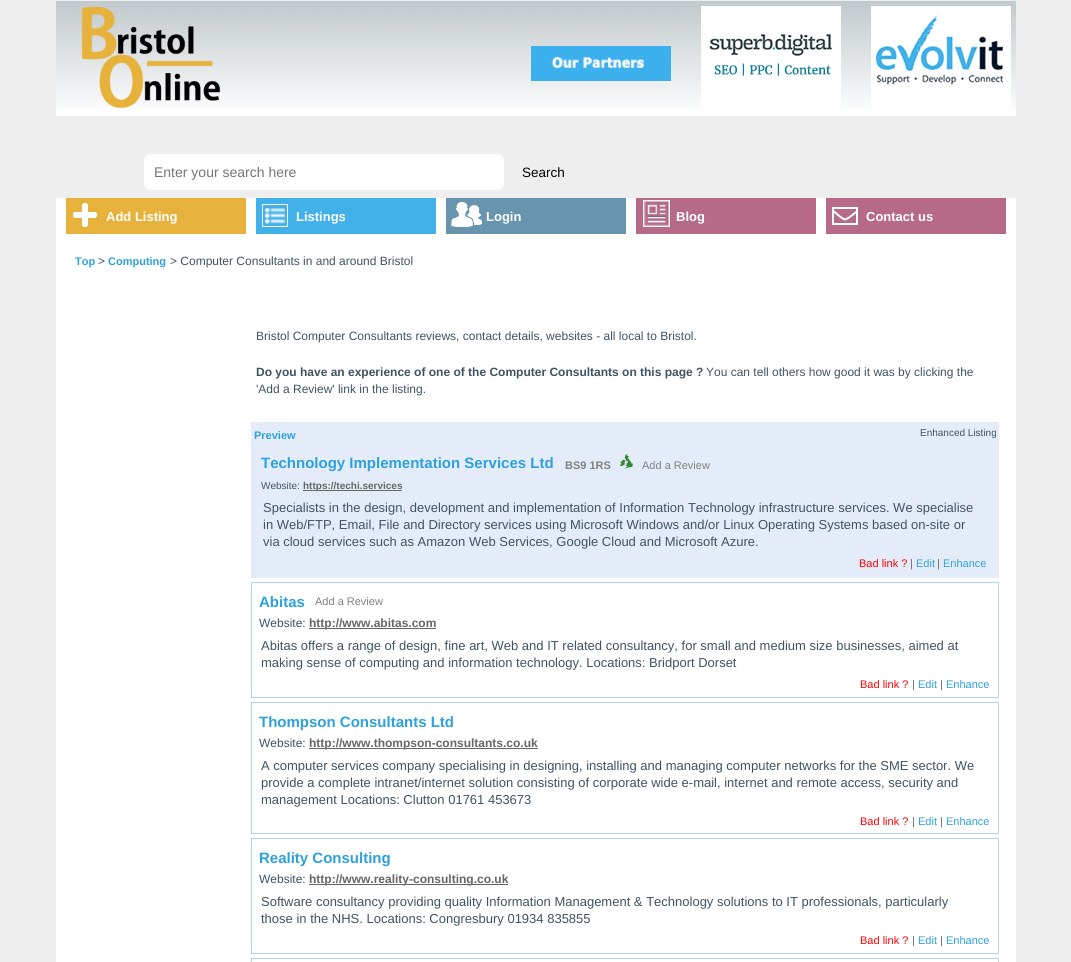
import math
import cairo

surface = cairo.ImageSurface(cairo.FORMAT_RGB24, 1071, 962)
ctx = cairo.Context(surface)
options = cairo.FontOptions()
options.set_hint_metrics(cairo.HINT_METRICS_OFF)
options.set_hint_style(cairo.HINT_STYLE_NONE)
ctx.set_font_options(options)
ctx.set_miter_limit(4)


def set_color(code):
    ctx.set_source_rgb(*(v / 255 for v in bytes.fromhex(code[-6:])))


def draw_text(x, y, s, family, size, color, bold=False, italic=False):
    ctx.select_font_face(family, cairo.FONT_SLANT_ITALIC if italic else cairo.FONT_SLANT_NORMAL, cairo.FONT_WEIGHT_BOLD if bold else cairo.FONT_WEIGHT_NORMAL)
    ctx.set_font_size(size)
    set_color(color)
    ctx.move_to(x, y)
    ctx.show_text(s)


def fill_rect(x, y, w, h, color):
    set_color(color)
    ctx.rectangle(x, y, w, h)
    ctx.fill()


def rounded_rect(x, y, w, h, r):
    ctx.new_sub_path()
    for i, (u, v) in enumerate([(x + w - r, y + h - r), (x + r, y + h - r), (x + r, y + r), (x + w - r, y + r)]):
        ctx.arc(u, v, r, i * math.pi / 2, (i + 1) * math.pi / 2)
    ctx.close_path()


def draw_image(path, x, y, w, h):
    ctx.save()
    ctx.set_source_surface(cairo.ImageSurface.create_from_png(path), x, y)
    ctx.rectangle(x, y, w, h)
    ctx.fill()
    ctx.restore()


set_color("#eeeeee")
ctx.paint()
fill_rect(56, 109, 960, 7, "#ffffff")
draw_image("assets/img1.png", 56, 1, 960, 108)
draw_image("assets/img2.png", 81, 6, 140, 103)
draw_image("assets/img3.png", 531, 46, 140, 35)
draw_image("assets/img4.png", 701, 6, 140, 103)
draw_image("assets/img5.png", 871, 6, 140, 103)
rounded_rect(143.5, 153.5, 361, 37, 6.5)
ctx.fill_preserve()
set_color("#eeeeee")
ctx.set_line_width(1)
ctx.stroke()
draw_text(154, 177, "Enter your search here", "Liberation Sans", 14, "#757575")
draw_text(522, 177, "Search", "Liberation Sans", 13.5, "#000000")
fill_rect(56, 198, 960, 764, "#ffffff")
fill_rect(66, 198, 180, 36, "#e6b23c")
draw_image("assets/img6.png", 73, 203, 25, 24)
draw_text(106, 221, "Add Listing", "Liberation Sans", 13, "#ffffff", bold=True)
fill_rect(256, 198, 180, 36, "#42b1e9")
draw_image("assets/img7.png", 262, 204, 26, 23)
draw_text(296, 221, "Listings", "Liberation Sans", 13, "#ffffff", bold=True)
fill_rect(446, 198, 180, 36, "#6894ad")
draw_image("assets/img8.png", 451, 202, 31, 25)
draw_text(486, 221, "Login", "Liberation Sans", 13, "#ffffff", bold=True)
fill_rect(636, 198, 180, 36, "#b66a88")
draw_image("assets/img9.png", 643, 200, 27, 27)
draw_text(676, 221, "Blog", "Liberation Sans", 13, "#ffffff", bold=True)
fill_rect(826, 198, 180, 36, "#b66a88")
draw_image("assets/img10.png", 832, 207, 26, 18)
draw_text(866, 221, "Contact us", "Liberation Sans", 13, "#ffffff", bold=True)
draw_text(75, 265, "Top", "Liberation Sans", 11, "#2ca1de", bold=True)
draw_text(98, 265, ">", "Liberation Sans", 12, "#405363")
draw_text(108, 265, "Computing", "Liberation Sans", 11, "#2ca1de", bold=True)
draw_text(170, 265, "> Computer Consultants in and around Bristol", "Liberation Sans", 12, "#405363")
draw_text(256, 340, "Bristol Computer Consultants reviews, contact details, websites - all local to Bristol.", "Liberation Sans", 12, "#405363")
draw_text(256, 376, "Do you have an experience of one of the Computer Consultants on this page ?", "Liberation Sans", 12, "#405363", bold=True)
draw_text(706, 376, "You can tell others how good it was by clicking the", "Liberation Sans", 12, "#405363")
draw_text(256, 393, "'Add a Review' link in the listing.", "Liberation Sans", 12, "#405363")
fill_rect(251, 422, 748, 156, "#e5ecf9")
draw_text(254, 439, "Preview", "Liberation Sans", 11, "#2ca1de", bold=True)
draw_text(920, 436, "Enhanced Listing", "Liberation Sans", 10, "#405363")
draw_text(261, 468, "Technology Implementation Services Ltd", "Liberation Sans", 15, "#2ca1de", bold=True)
draw_text(565, 469, "BS9 1RS", "Liberation Sans", 11, "#808080", bold=True)
draw_image("assets/img11.png", 620, 454, 13, 15)
draw_text(642, 469, "Add a Review", "Liberation Sans", 11, "#808080")
draw_text(261, 489, "Website:", "Liberation Sans", 10, "#405363")
fill_rect(303, 490, 99, 1, "#666666")
draw_text(303, 489, "https://techi.services", "Liberation Sans", 10, "#666666", bold=True)
draw_text(263, 512, "Specialists in the design, development and implementation of Information Technology infrastructure services. We specialise", "Liberation Sans", 13, "#405363")
draw_text(263, 529, "in Web/FTP, Email, File and Directory services using Microsoft Windows and/or Linux Operating Systems based on-site or", "Liberation Sans", 13, "#405363")
draw_text(263, 546, "via cloud services such as Amazon Web Services, Google Cloud and Microsoft Azure.", "Liberation Sans", 13, "#405363")
draw_text(859, 567, "Bad link ?", "Liberation Sans", 11, "#ff0000")
draw_text(910, 567, "|", "Liberation Sans", 11, "#666666")
draw_text(916, 567, "Edit", "Liberation Sans", 11, "#2ca1de")
draw_text(937, 567, "|", "Liberation Sans", 11, "#666666")
draw_text(943, 567, "Enhance", "Liberation Sans", 11, "#2ca1de")
ctx.rectangle(251.5, 582.5, 747, 115)
set_color("#add8e6")
ctx.stroke()
draw_text(259, 607, "Abitas", "Liberation Sans", 15, "#2ca1de", bold=True)
draw_text(315, 605, "Add a Review", "Liberation Sans", 11, "#808080")
draw_text(259, 627, "Website:", "Liberation Sans", 12, "#405363")
fill_rect(309, 628, 127, 1, "#666666")
draw_text(309, 627, "http://www.abitas.com", "Liberation Sans", 12, "#666666", bold=True)
draw_text(261, 650, "Abitas offers a range of design, fine art, Web and IT related consultancy, for small and medium size businesses, aimed at", "Liberation Sans", 13, "#405363")
draw_text(261, 667, "making sense of computing and information technology. Locations: Bridport Dorset", "Liberation Sans", 13, "#405363")
draw_text(860, 688, "Bad link ?", "Liberation Sans", 11, "#ff0000")
draw_text(912, 688, "|", "Liberation Sans", 11, "#666666")
draw_text(918, 688, "Edit", "Liberation Sans", 11, "#2ca1de")
draw_text(940, 688, "|", "Liberation Sans", 11, "#666666")
draw_text(946, 688, "Enhance", "Liberation Sans", 11, "#2ca1de")
ctx.rectangle(251.5, 702.5, 747, 131)
set_color("#add8e6")
ctx.stroke()
draw_text(259, 727, "Thompson Consultants Ltd", "Liberation Sans", 15, "#2ca1de", bold=True)
draw_text(259, 747, "Website:", "Liberation Sans", 12, "#405363")
fill_rect(309, 748, 229, 1, "#666666")
draw_text(309, 747, "http://www.thompson-consultants.co.uk", "Liberation Sans", 12, "#666666", bold=True)
draw_text(261, 770, "A computer services company specialising in designing, installing and managing computer networks for the SME sector. We", "Liberation Sans", 13, "#405363")
draw_text(261, 787, "provide a complete intranet/internet solution consisting of corporate wide e-mail, internet and remote access, security and", "Liberation Sans", 13, "#405363")
draw_text(261, 804, "management Locations: Clutton 01761 453673", "Liberation Sans", 13, "#405363")
draw_text(860, 825, "Bad link ?", "Liberation Sans", 11, "#ff0000")
draw_text(912, 825, "|", "Liberation Sans", 11, "#666666")
draw_text(918, 825, "Edit", "Liberation Sans", 11, "#2ca1de")
draw_text(940, 825, "|", "Liberation Sans", 11, "#666666")
draw_text(946, 825, "Enhance", "Liberation Sans", 11, "#2ca1de")
ctx.rectangle(251.5, 838.5, 747, 115)
set_color("#add8e6")
ctx.stroke()
draw_text(259, 863, "Reality Consulting", "Liberation Sans", 15, "#2ca1de", bold=True)
draw_text(259, 883, "Website:", "Liberation Sans", 12, "#405363")
fill_rect(309, 884, 199, 1, "#666666")
draw_text(309, 883, "http://www.reality-consulting.co.uk", "Liberation Sans", 12, "#666666", bold=True)
draw_text(261, 906, "Software consultancy providing quality Information Management & Technology solutions to IT professionals, particularly", "Liberation Sans", 13, "#405363")
draw_text(261, 923, "those in the NHS. Locations: Congresbury 01934 835855", "Liberation Sans", 13, "#405363")
draw_text(860, 944, "Bad link ?", "Liberation Sans", 11, "#ff0000")
draw_text(912, 944, "|", "Liberation Sans", 11, "#666666")
draw_text(918, 944, "Edit", "Liberation Sans", 11, "#2ca1de")
draw_text(940, 944, "|", "Liberation Sans", 11, "#666666")
draw_text(946, 944, "Enhance", "Liberation Sans", 11, "#2ca1de")
ctx.rectangle(251.5, 958.5, 747, 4)
set_color("#add8e6")
ctx.stroke()
surface.write_to_png("output.png")
